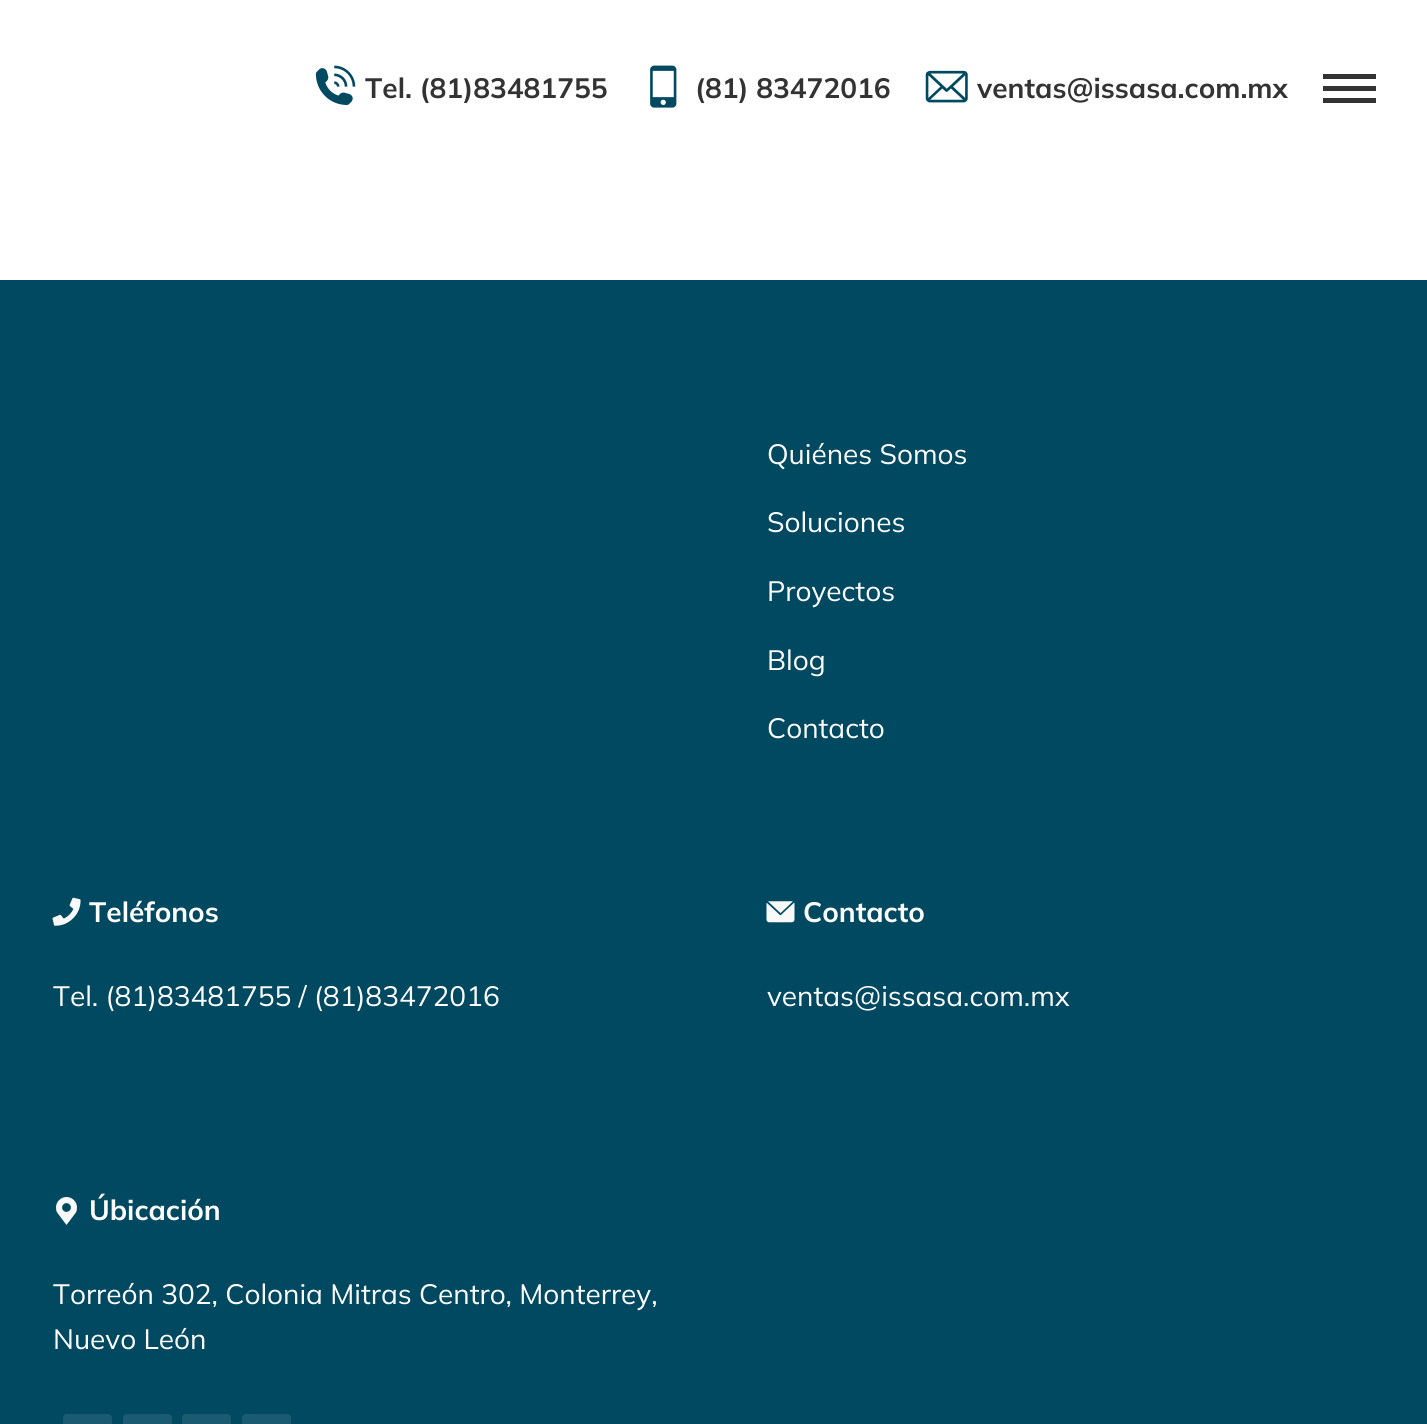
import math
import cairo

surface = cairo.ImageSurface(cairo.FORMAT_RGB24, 1427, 1424)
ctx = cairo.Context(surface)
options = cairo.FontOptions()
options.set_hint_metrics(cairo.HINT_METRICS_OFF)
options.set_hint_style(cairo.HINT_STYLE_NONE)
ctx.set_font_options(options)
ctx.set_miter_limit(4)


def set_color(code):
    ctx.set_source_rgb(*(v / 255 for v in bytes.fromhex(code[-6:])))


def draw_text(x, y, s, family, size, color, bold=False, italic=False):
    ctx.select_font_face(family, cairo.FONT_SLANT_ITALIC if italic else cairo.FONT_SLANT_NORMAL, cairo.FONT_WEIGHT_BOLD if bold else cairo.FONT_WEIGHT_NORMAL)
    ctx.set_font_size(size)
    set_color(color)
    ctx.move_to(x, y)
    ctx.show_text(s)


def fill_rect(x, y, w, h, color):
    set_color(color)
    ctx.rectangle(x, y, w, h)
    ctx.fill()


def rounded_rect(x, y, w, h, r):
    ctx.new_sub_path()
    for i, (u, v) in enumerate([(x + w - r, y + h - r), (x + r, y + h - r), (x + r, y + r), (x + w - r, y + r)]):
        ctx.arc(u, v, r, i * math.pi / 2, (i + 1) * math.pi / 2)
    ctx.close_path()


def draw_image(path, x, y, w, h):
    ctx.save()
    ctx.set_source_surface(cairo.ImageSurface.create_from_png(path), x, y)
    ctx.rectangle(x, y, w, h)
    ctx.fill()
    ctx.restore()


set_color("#ffffff")
ctx.paint()
draw_image("assets/img1.png", 315, 65, 41, 40)
draw_text(365, 98, "Tel. (81)83481755", "Mulish", 28, "#333333", bold=True)
draw_image("assets/img2.png", 650, 65, 27, 43)
draw_text(695, 98, "(81) 83472016", "Mulish", 28, "#333333", bold=True)
draw_image("assets/img3.png", 925, 70, 43, 33)
draw_text(977, 98, "ventas@issasa.com.mx", "Mulish", 28, "#333333", bold=True)
fill_rect(1323, 74, 53, 5, "#333333")
fill_rect(1323, 86, 53, 5, "#333333")
fill_rect(1323, 98, 53, 5, "#333333")
fill_rect(0, 280, 1427, 1144, "#004961")
draw_text(767, 464, "Quiénes Somos", "Mulish", 28, "#ffffff")
draw_text(767, 532, "Soluciones", "Mulish", 28, "#ffffff")
draw_text(767, 601, "Proyectos", "Mulish", 28, "#ffffff")
draw_text(767, 670, "Blog", "Mulish", 28, "#ffffff")
draw_text(767, 738, "Contacto", "Mulish", 28, "#ffffff")
draw_image("assets/img4.png", 52, 897, 29, 29)
draw_text(89, 922, "Teléfonos", "Mulish", 28, "#ffffff", bold=True)
draw_text(53, 1006, "Tel. (81)83481755 / (81)83472016", "Mulish", 28, "#ffffff")
draw_image("assets/img5.png", 766, 901, 29, 22)
draw_text(803, 922, "Contacto", "Mulish", 28, "#ffffff", bold=True)
draw_text(767, 1006, "ventas@issasa.com.mx", "Mulish", 28, "#ffffff")
draw_image("assets/img6.png", 56, 1197, 21, 28)
draw_text(89, 1220, "Úbicación", "Mulish", 28, "#ffffff", bold=True)
draw_text(53, 1304, "Torreón 302, Colonia Mitras Centro, Monterrey,", "Mulish", 28, "#ffffff")
draw_text(53, 1349, "Nuevo León", "Mulish", 28, "#ffffff")
set_color("#1a5b71")
rounded_rect(63, 1414, 49, 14, 4)
ctx.fill()
rounded_rect(123, 1414, 49, 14, 4)
ctx.fill()
rounded_rect(182, 1414, 49, 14, 4)
ctx.fill()
rounded_rect(242, 1414, 49, 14, 4)
ctx.fill()
surface.write_to_png("output.png")
